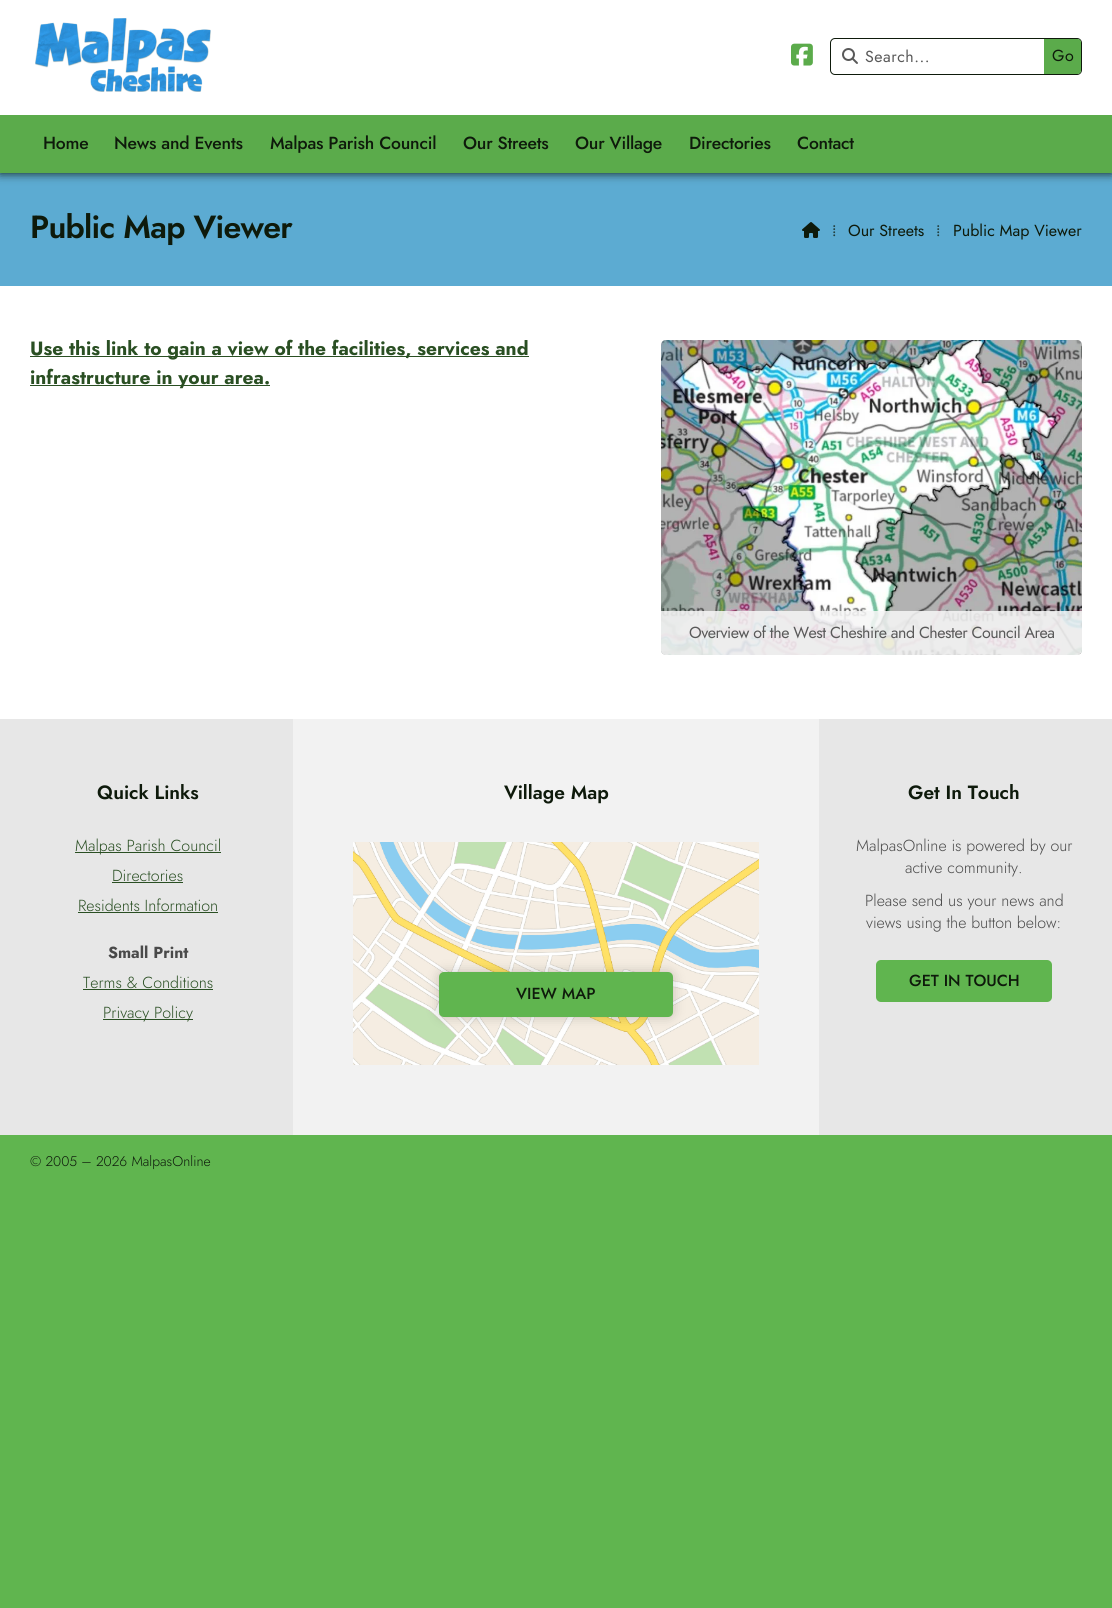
import math
import cairo

surface = cairo.ImageSurface(cairo.FORMAT_RGB24, 1112, 1608)
ctx = cairo.Context(surface)
options = cairo.FontOptions()
options.set_hint_metrics(cairo.HINT_METRICS_OFF)
options.set_hint_style(cairo.HINT_STYLE_NONE)
ctx.set_font_options(options)
ctx.set_miter_limit(4)


def set_color(code):
    ctx.set_source_rgb(*(v / 255 for v in bytes.fromhex(code[-6:])))


def draw_text(x, y, s, family, size, color, bold=False, italic=False):
    ctx.select_font_face(family, cairo.FONT_SLANT_ITALIC if italic else cairo.FONT_SLANT_NORMAL, cairo.FONT_WEIGHT_BOLD if bold else cairo.FONT_WEIGHT_NORMAL)
    ctx.set_font_size(size)
    set_color(color)
    ctx.move_to(x, y)
    ctx.show_text(s)


def draw_spaced(x, y, s, letter, word):
    ctx.move_to(x, y)
    for ch in s:
        ctx.show_text(ch)
        ctx.rel_move_to(letter + word * (ch == ' '), 0)


def fill_rect(x, y, w, h, color):
    set_color(color)
    ctx.rectangle(x, y, w, h)
    ctx.fill()


def rounded_rect(x, y, w, h, r):
    ctx.new_sub_path()
    for i, (u, v) in enumerate([(x + w - r, y + h - r), (x + r, y + h - r), (x + r, y + r), (x + w - r, y + r)]):
        ctx.arc(u, v, r, i * math.pi / 2, (i + 1) * math.pi / 2)
    ctx.close_path()


def draw_shadow(x, y, w, h, r, blur, alpha):
    ctx.push_group_with_content(cairo.CONTENT_ALPHA)
    ctx.set_operator(cairo.OPERATOR_SOURCE)
    for i in range(15, -16, -2):
        e = blur * i / 6
        if min(w, h) + 2 * e > 0:
            ctx.set_source_rgba(0, 0, 0, alpha * math.erfc((i - 1) / 8.5) / 2)
            rounded_rect(x - e, y - e, w + 2 * e, h + 2 * e, max(0, min(r + e + blur * .6, min(w, h) / 2 + e)))
            ctx.fill()
    ctx.mask(ctx.pop_group())


def draw_image(path, x, y, w, h):
    ctx.save()
    ctx.set_source_surface(cairo.ImageSurface.create_from_png(path), x, y)
    ctx.rectangle(x, y, w, h)
    ctx.fill()
    ctx.restore()


set_color("#60b54f")
ctx.paint()
fill_rect(0, 286, 1112, 433, "#ffffff")
fill_rect(0, 173, 1112, 113, "#5cabd2")
set_color("#0e1a0b")
draw_shadow(0, 0, 1112, 173, 0, 5, 1)
fill_rect(0, 0, 1112, 115, "#ffffff")
draw_image("assets/img1.png", 35, 18, 176, 74)
draw_image("assets/img2.png", 791, 43, 22, 23)
rounded_rect(830.5, 38.5, 251, 36, 4.5)
set_color("#0e1a0b")
ctx.set_line_width(1)
ctx.stroke()
draw_image("assets/img3.png", 842, 48, 16, 16)
ctx.select_font_face("Jost")
ctx.set_font_size(16)
set_color("#595959")
draw_spaced(865, 62, "Search...", 0.5, 0)
set_color("#5bab4b")
ctx.new_path()
ctx.move_to(1044, 39)
ctx.line_to(1078, 39)
ctx.curve_to(1079.5, 39, 1081, 40.5, 1081, 42)
ctx.line_to(1081, 71)
ctx.curve_to(1081, 72.5, 1079.5, 74, 1078, 74)
ctx.line_to(1044, 74)
ctx.close_path()
ctx.fill()
set_color("#0e1a0b")
draw_spaced(1052, 61, "Go", 0.5, 0)
fill_rect(0, 115, 1112, 58, "#5bab4b")
ctx.select_font_face("Jost Medium")
ctx.set_font_size(17.5)
set_color("#0e1a0b")
draw_spaced(43, 149, "Home", -0.2, 0)
draw_spaced(114, 149, "News and Events", -0.2, 0)
draw_spaced(270, 149, "Malpas Parish Council", -0.2, 0)
draw_spaced(463, 149, "Our Streets", -0.2, 0)
draw_spaced(575, 149, "Our Village", -0.2, 0)
draw_spaced(689, 149, "Directories", -0.2, 0)
draw_spaced(797, 149, "Contact", -0.2, 0)
ctx.select_font_face("Jost SemiBold")
ctx.set_font_size(32)
draw_spaced(30, 238, "Public Map Viewer", -0.75, 0)
draw_image("assets/img4.png", 802, 222, 18, 16)
draw_text(832, 236, "⁞", "Liberation Serif", 16, "#223e3d")
draw_text(848, 236, "Our Streets", "Jost", 16, "#0e1a0b")
draw_text(936, 236, "⁞", "Liberation Serif", 16, "#223e3d")
draw_text(953, 236, "Public Map Viewer", "Jost", 16, "#0e1a0b")
fill_rect(30, 356, 499, 1, "#2a4f23")
draw_text(30, 355, "Use this link to gain a view of the facilities, services and", "Jost", 19.2, "#2a4f23", bold=True)
fill_rect(30, 385, 240, 1, "#2a4f23")
draw_text(30, 384, "infrastructure in your area.", "Jost", 19.2, "#2a4f23", bold=True)
draw_image("assets/img5.png", 661, 340, 421, 315)
ctx.set_source_rgba(0.961, 0.961, 0.961, 0.87)
ctx.new_path()
ctx.move_to(661, 611)
ctx.line_to(1082, 611)
ctx.line_to(1082, 650)
ctx.curve_to(1082, 653, 1080, 655, 1077, 655)
ctx.line_to(666, 655)
ctx.curve_to(663, 655, 661, 653, 661, 650)
ctx.close_path()
ctx.fill()
ctx.select_font_face("Jost")
ctx.set_font_size(16)
set_color("#595959")
draw_spaced(689, 638, "Overview of the West Cheshire and Chester Council Area", -0.48, 0)
fill_rect(0, 719, 1112, 416, "#e7e7e7")
draw_text(97, 799, "Quick Links", "Jost SemiBold", 19.2, "#0e1a0b")
fill_rect(75, 852, 146, 1, "#2a4f23")
draw_text(75, 851, "Malpas Parish Council", "Jost Light", 16, "#2a4f23")
draw_text(112, 881, "Directories", "Jost Light", 16, "#2a4f23")
fill_rect(112, 882, 71, 1, "#2a4f23")
draw_text(78, 911, "Residents Information", "Jost Light", 16, "#2a4f23")
fill_rect(78, 912, 140, 1, "#2a4f23")
draw_text(108, 958, "Small Print", "Jost", 16, "#4a4a4a", bold=True)
draw_text(83, 988, "Terms & Conditions", "Jost Light", 16, "#2a4f23")
fill_rect(83, 989, 130, 1, "#2a4f23")
fill_rect(103, 1019, 90, 1, "#2a4f23")
draw_text(103, 1018, "Privacy Policy", "Jost Light", 16, "#2a4f23")
fill_rect(293, 719, 526, 416, "#f2f2f2")
draw_text(504, 799, "Village Map", "Jost SemiBold", 19.2, "#0e1a0b")
draw_image("assets/img6.png", 353, 842, 406, 223)
set_color("#000000")
draw_shadow(439, 972, 234, 45, 5, 6, 0.2)
set_color("#60b54f")
rounded_rect(439, 972, 234, 45, 5)
ctx.fill()
draw_text(516, 999, "VIEW MAP", "Jost Medium", 16, "#0e1a0b")
draw_text(908, 799, "Get In Touch", "Jost SemiBold", 19.2, "#0e1a0b")
draw_text(856, 851, "MalpasOnline is powered by our", "Jost Light", 16, "#4a4a4a")
draw_text(905, 873, "active community.", "Jost Light", 16, "#4a4a4a")
draw_text(865, 906, "Please send us your news and", "Jost Light", 16, "#4a4a4a")
draw_text(866, 928, "views using the button below:", "Jost Light", 16, "#4a4a4a")
set_color("#60b54f")
rounded_rect(876, 960, 176, 42, 5)
ctx.fill()
draw_text(909, 986, "GET IN TOUCH", "Jost Medium", 16, "#0e1a0b")
draw_text(30, 1166, "© 2005 – 2026 MalpasOnline", "Jost Light", 14, "#0e1a0b")
surface.write_to_png("output.png")
